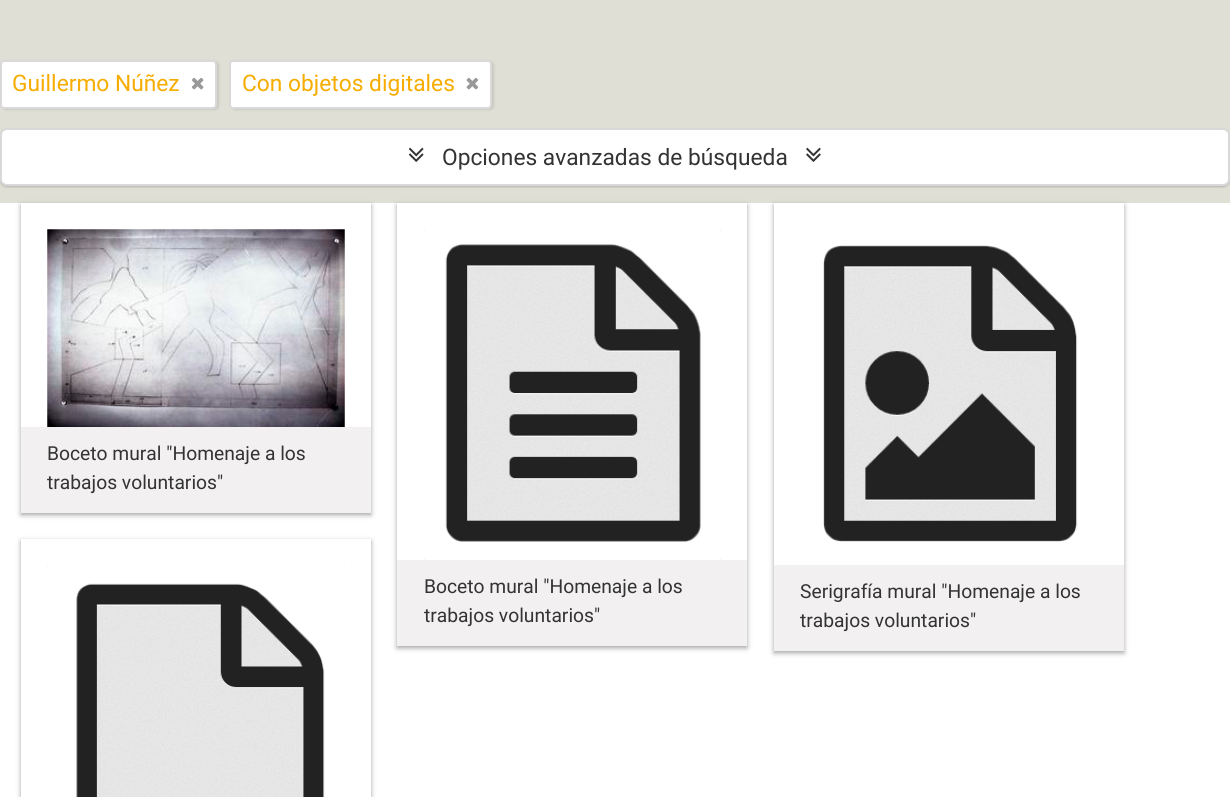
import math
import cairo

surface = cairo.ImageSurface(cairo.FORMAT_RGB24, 1230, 797)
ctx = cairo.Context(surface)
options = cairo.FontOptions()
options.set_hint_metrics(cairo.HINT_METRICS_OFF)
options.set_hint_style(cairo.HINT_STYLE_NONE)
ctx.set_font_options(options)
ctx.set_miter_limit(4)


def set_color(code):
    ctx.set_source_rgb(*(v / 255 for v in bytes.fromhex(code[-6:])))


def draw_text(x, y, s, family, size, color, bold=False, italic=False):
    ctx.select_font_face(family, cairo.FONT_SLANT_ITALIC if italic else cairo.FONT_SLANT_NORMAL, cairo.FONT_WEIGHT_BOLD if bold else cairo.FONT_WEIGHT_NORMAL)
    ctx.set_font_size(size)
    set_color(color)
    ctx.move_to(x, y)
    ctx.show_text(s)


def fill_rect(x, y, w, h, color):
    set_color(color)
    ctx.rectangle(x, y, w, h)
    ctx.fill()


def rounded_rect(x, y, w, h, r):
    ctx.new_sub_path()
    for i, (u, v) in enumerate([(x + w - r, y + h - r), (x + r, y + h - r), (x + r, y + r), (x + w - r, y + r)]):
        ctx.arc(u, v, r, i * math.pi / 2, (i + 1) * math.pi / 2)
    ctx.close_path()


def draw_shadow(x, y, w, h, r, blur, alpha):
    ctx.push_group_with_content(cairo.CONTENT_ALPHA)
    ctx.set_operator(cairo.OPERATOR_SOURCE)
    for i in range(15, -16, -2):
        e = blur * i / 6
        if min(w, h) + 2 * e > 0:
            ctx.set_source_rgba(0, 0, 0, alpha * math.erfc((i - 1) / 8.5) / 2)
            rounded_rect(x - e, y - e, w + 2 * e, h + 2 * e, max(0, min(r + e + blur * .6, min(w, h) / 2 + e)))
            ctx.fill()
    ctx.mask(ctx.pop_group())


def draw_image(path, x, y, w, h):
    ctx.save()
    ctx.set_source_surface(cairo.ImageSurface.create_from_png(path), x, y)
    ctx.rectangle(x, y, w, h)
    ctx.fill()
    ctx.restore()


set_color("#e0dfd6")
ctx.paint()
set_color("#000000")
draw_shadow(2, 61, 217, 49, 4, 1, 0.1)
set_color("#ffffff")
rounded_rect(1, 61, 215, 47, 3)
ctx.fill_preserve()
set_color("#d9d9d9")
ctx.stroke()
draw_text(12, 91, "Guillermo Núñez", "Roboto", 22.75, "#f6ac00")
draw_image("assets/img1.png", 191, 77, 13, 13)
set_color("#000000")
draw_shadow(231, 61, 263, 49, 4, 1, 0.1)
set_color("#ffffff")
rounded_rect(230, 61, 261, 47, 3)
ctx.fill_preserve()
set_color("#d9d9d9")
ctx.stroke()
draw_text(242, 91, "Con objetos digitales", "Roboto", 22.75, "#f6ac00")
draw_image("assets/img2.png", 466, 77, 13, 13)
set_color("#000000")
draw_shadow(0, 130, 1230, 57, 7, 1, 0.2)
set_color("#ffffff")
rounded_rect(1, 129, 1228, 56, 6)
ctx.fill_preserve()
set_color("#d9d9d9")
ctx.stroke()
draw_image("assets/img3.png", 408, 147, 16, 15)
draw_text(442, 165, "Opciones avanzadas de búsqueda", "Roboto", 22.75, "#333333")
draw_image("assets/img4.png", 806, 147, 15, 15)
fill_rect(0, 203, 1230, 594, "#ffffff")
set_color("#191919")
draw_shadow(21, 205, 350, 310, 0, 2.5, 0.4)
fill_rect(21, 203, 350, 224, "#ffffff")
draw_image("assets/img5.png", 47, 229, 298, 198)
fill_rect(21, 427, 350, 86, "#f2f0f0")
draw_text(47, 460, "Boceto mural \"Homenaje a los", "Roboto", 19.25, "#333333")
draw_text(47, 489, "trabajos voluntarios\"", "Roboto", 19.25, "#333333")
ctx.save()
ctx.set_fill_rule(cairo.FILL_RULE_EVEN_ODD)
ctx.new_path()
ctx.move_to(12, 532)
ctx.line_to(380, 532)
ctx.line_to(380, 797)
ctx.line_to(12, 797)
ctx.close_path()
ctx.move_to(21, 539)
ctx.line_to(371, 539)
ctx.line_to(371, 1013)
ctx.line_to(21, 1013)
ctx.close_path()
ctx.clip()
set_color("#191919")
draw_shadow(21, 541, 350, 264, 0, 2.5, 0.4)
ctx.restore()
draw_image("assets/img6.png", 47, 565, 298, 232)
set_color("#191919")
draw_shadow(397, 205, 350, 443, 0, 2.5, 0.4)
fill_rect(397, 203, 350, 357, "#ffffff")
draw_image("assets/img7.png", 423, 229, 298, 331)
fill_rect(397, 560, 350, 86, "#f2f0f0")
draw_text(424, 593, "Boceto mural \"Homenaje a los", "Roboto", 19.25, "#333333")
draw_text(424, 622, "trabajos voluntarios\"", "Roboto", 19.25, "#333333")
set_color("#191919")
draw_shadow(774, 205, 350, 448, 0, 2.5, 0.4)
fill_rect(774, 203, 350, 362, "#ffffff")
draw_image("assets/img8.png", 823, 245, 255, 297)
fill_rect(774, 565, 350, 86, "#f2f0f0")
draw_text(800, 598, "Serigrafía mural \"Homenaje a los", "Roboto", 19.25, "#333333")
draw_text(800, 627, "trabajos voluntarios\"", "Roboto", 19.25, "#333333")
surface.write_to_png("output.png")
